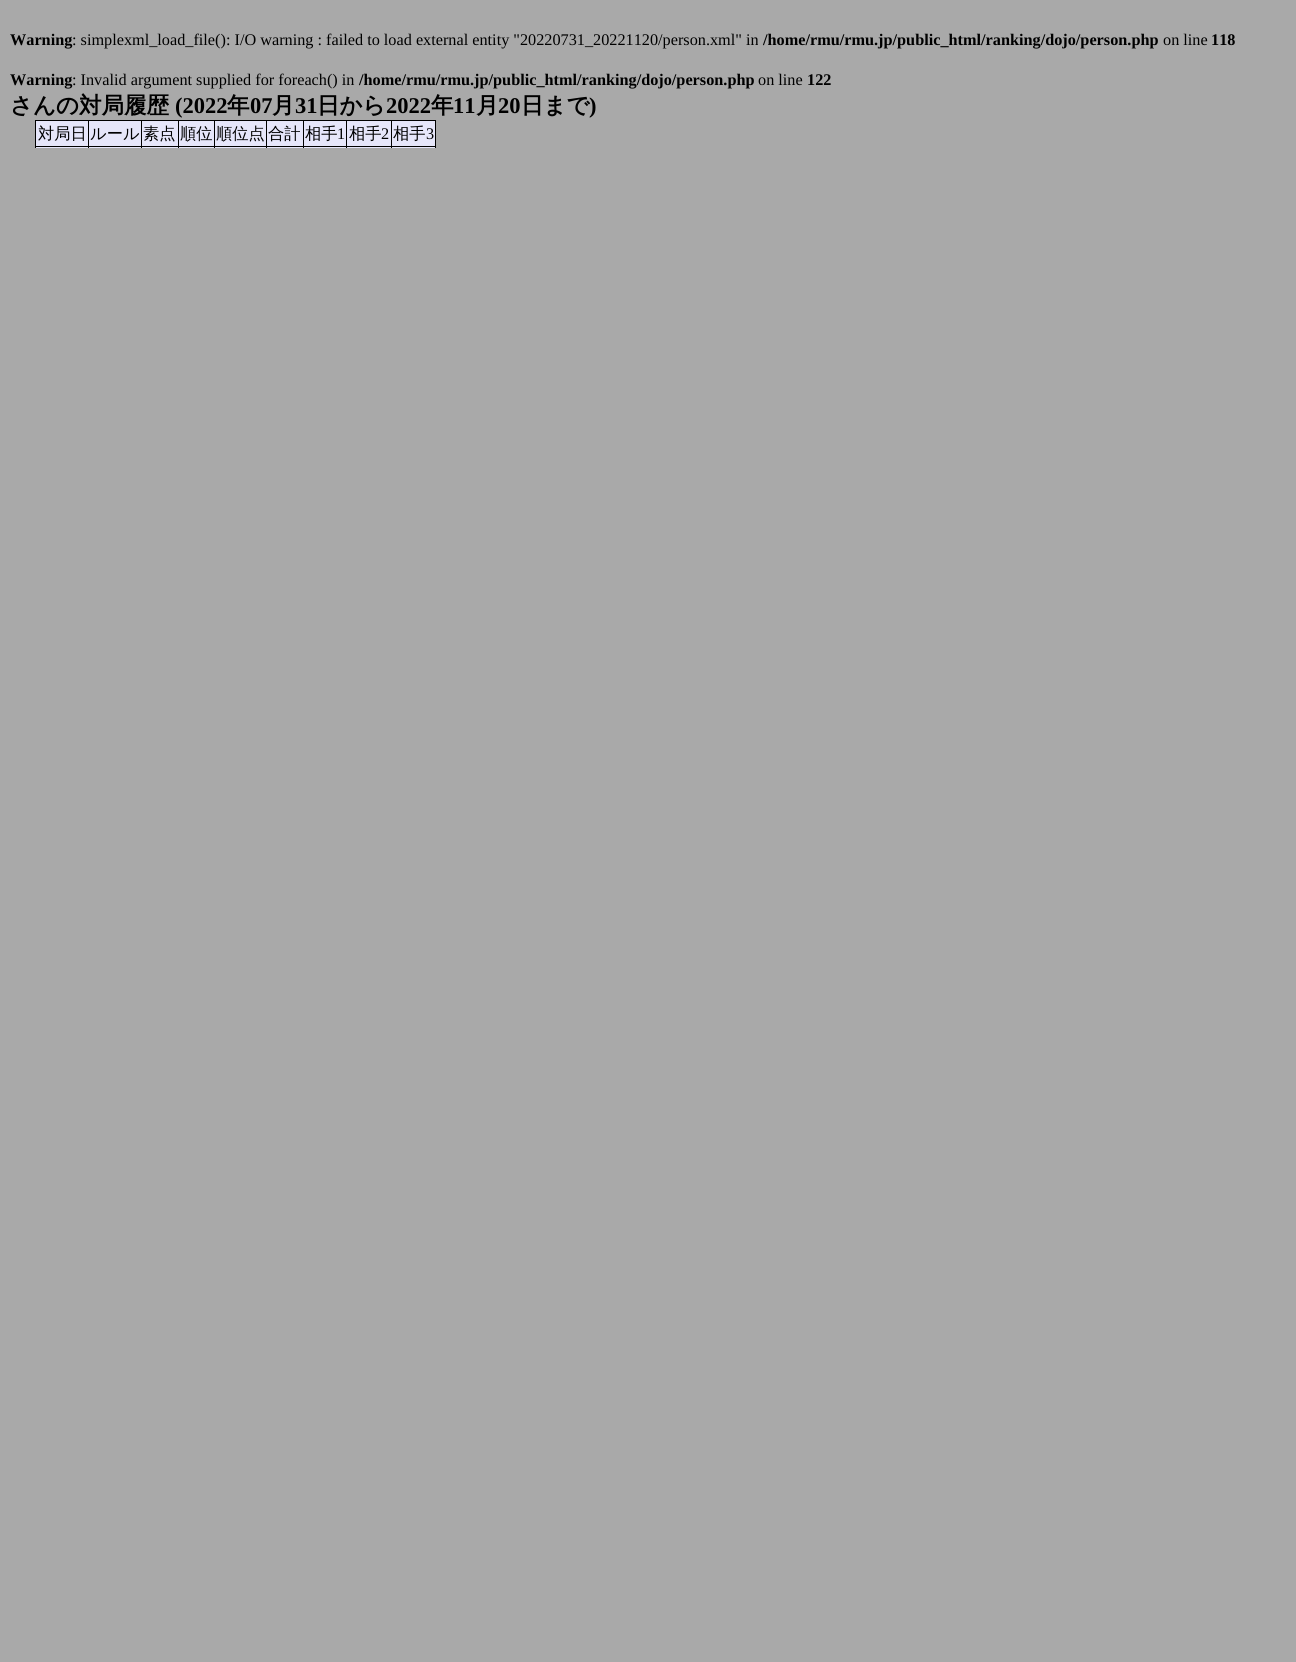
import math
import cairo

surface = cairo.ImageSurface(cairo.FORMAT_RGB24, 1296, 1662)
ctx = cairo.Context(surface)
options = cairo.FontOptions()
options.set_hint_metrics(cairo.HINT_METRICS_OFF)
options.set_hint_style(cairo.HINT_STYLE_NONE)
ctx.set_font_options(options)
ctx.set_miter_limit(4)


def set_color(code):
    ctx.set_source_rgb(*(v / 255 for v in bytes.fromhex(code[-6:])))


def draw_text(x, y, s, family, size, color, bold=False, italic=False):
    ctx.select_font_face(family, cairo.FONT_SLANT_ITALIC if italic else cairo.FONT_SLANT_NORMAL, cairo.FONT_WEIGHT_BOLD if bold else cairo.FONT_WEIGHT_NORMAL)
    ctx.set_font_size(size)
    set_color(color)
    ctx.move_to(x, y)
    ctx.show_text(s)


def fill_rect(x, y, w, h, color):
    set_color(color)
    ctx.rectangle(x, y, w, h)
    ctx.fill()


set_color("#a9a9a9")
ctx.paint()
draw_text(10, 45, "Warning", "Liberation Serif", 16.25, "#000000", bold=True)
draw_text(72, 45, ": simplexml_load_file(): I/O warning : failed to load external entity \"20220731_20221120/person.xml\" in", "Liberation Serif", 16.25, "#000000")
draw_text(763, 45, "/home/rmu/rmu.jp/public_html/ranking/dojo/person.php", "Liberation Serif", 16.25, "#000000", bold=True)
draw_text(1163, 45, "on line", "Liberation Serif", 16.25, "#000000")
draw_text(1211, 45, "118", "Liberation Serif", 16.25, "#000000", bold=True)
draw_text(10, 85, "Warning", "Liberation Serif", 16.25, "#000000", bold=True)
draw_text(72, 85, ": Invalid argument supplied for foreach() in", "Liberation Serif", 16.25, "#000000")
draw_text(359, 85, "/home/rmu/rmu.jp/public_html/ranking/dojo/person.php", "Liberation Serif", 16.25, "#000000", bold=True)
draw_text(758, 85, "on line", "Liberation Serif", 16.25, "#000000")
draw_text(807, 85, "122", "Liberation Serif", 16.25, "#000000", bold=True)
draw_text(10, 113, "さんの対局履歴", "WenQuanYi Zen Hei", 22.5, "#000000", bold=True)
draw_text(175, 113, "(2022", "Liberation Serif", 22.5, "#000000", bold=True)
draw_text(227, 113, "年", "WenQuanYi Zen Hei", 22.5, "#000000", bold=True)
draw_text(250, 113, "07", "Liberation Serif", 22.5, "#000000", bold=True)
draw_text(272, 113, "月", "WenQuanYi Zen Hei", 22.5, "#000000", bold=True)
draw_text(295, 113, "31", "Liberation Serif", 22.5, "#000000", bold=True)
draw_text(317, 113, "日から", "WenQuanYi Zen Hei", 22.5, "#000000", bold=True)
draw_text(386, 113, "2022", "Liberation Serif", 22.5, "#000000", bold=True)
draw_text(431, 113, "年", "WenQuanYi Zen Hei", 22.5, "#000000", bold=True)
draw_text(453, 113, "11", "Liberation Serif", 22.5, "#000000", bold=True)
draw_text(476, 113, "月", "WenQuanYi Zen Hei", 22.5, "#000000", bold=True)
draw_text(498, 113, "20", "Liberation Serif", 22.5, "#000000", bold=True)
draw_text(521, 113, "日まで", "WenQuanYi Zen Hei", 22.5, "#000000", bold=True)
draw_text(589, 113, ")", "Liberation Serif", 22.5, "#000000", bold=True)
fill_rect(36, 121, 399, 27, "#e6e6fa")
fill_rect(391, 120, 45, 1, "#000000")
fill_rect(435, 120, 1, 28, "#000000")
fill_rect(391, 146, 45, 1, "#000000")
fill_rect(391, 120, 1, 28, "#000000")
fill_rect(346, 120, 47, 1, "#000000")
fill_rect(346, 146, 47, 1, "#000000")
fill_rect(346, 120, 1, 28, "#000000")
fill_rect(303, 120, 45, 1, "#000000")
fill_rect(303, 146, 45, 1, "#000000")
fill_rect(303, 120, 1, 28, "#000000")
fill_rect(266, 120, 38, 1, "#000000")
fill_rect(266, 146, 38, 1, "#000000")
fill_rect(266, 120, 1, 28, "#000000")
fill_rect(214, 120, 54, 1, "#000000")
fill_rect(214, 146, 54, 1, "#000000")
fill_rect(214, 120, 1, 28, "#000000")
fill_rect(178, 120, 37, 1, "#000000")
fill_rect(178, 146, 37, 1, "#000000")
fill_rect(178, 120, 1, 28, "#000000")
fill_rect(141, 120, 38, 1, "#000000")
fill_rect(141, 146, 38, 1, "#000000")
fill_rect(141, 120, 1, 28, "#000000")
fill_rect(88, 120, 55, 1, "#000000")
fill_rect(88, 146, 55, 1, "#000000")
fill_rect(88, 120, 1, 28, "#000000")
fill_rect(35, 120, 54, 1, "#000000")
fill_rect(35, 146, 54, 1, "#000000")
fill_rect(35, 120, 1, 28, "#000000")
draw_text(38, 139, "対局日", "WenQuanYi Zen Hei Medium", 16.25, "#000000")
draw_text(90, 139, "ルール", "WenQuanYi Zen Hei Medium", 16.25, "#000000")
draw_text(143, 139, "素点", "WenQuanYi Zen Hei Medium", 16.25, "#000000")
draw_text(180, 139, "順位", "WenQuanYi Zen Hei Medium", 16.25, "#000000")
draw_text(216, 139, "順位点", "WenQuanYi Zen Hei Medium", 16.25, "#000000")
draw_text(268, 139, "合計", "WenQuanYi Zen Hei Medium", 16.25, "#000000")
draw_text(305, 139, "相手", "WenQuanYi Zen Hei Medium", 16.25, "#000000")
draw_text(337, 139, "1", "Liberation Serif", 16.25, "#000000")
draw_text(349, 139, "相手", "WenQuanYi Zen Hei Medium", 16.25, "#000000")
draw_text(381, 139, "2", "Liberation Serif", 16.25, "#000000")
draw_text(393, 139, "相手", "WenQuanYi Zen Hei Medium", 16.25, "#000000")
draw_text(426, 139, "3", "Liberation Serif", 16.25, "#000000")
surface.write_to_png("output.png")
